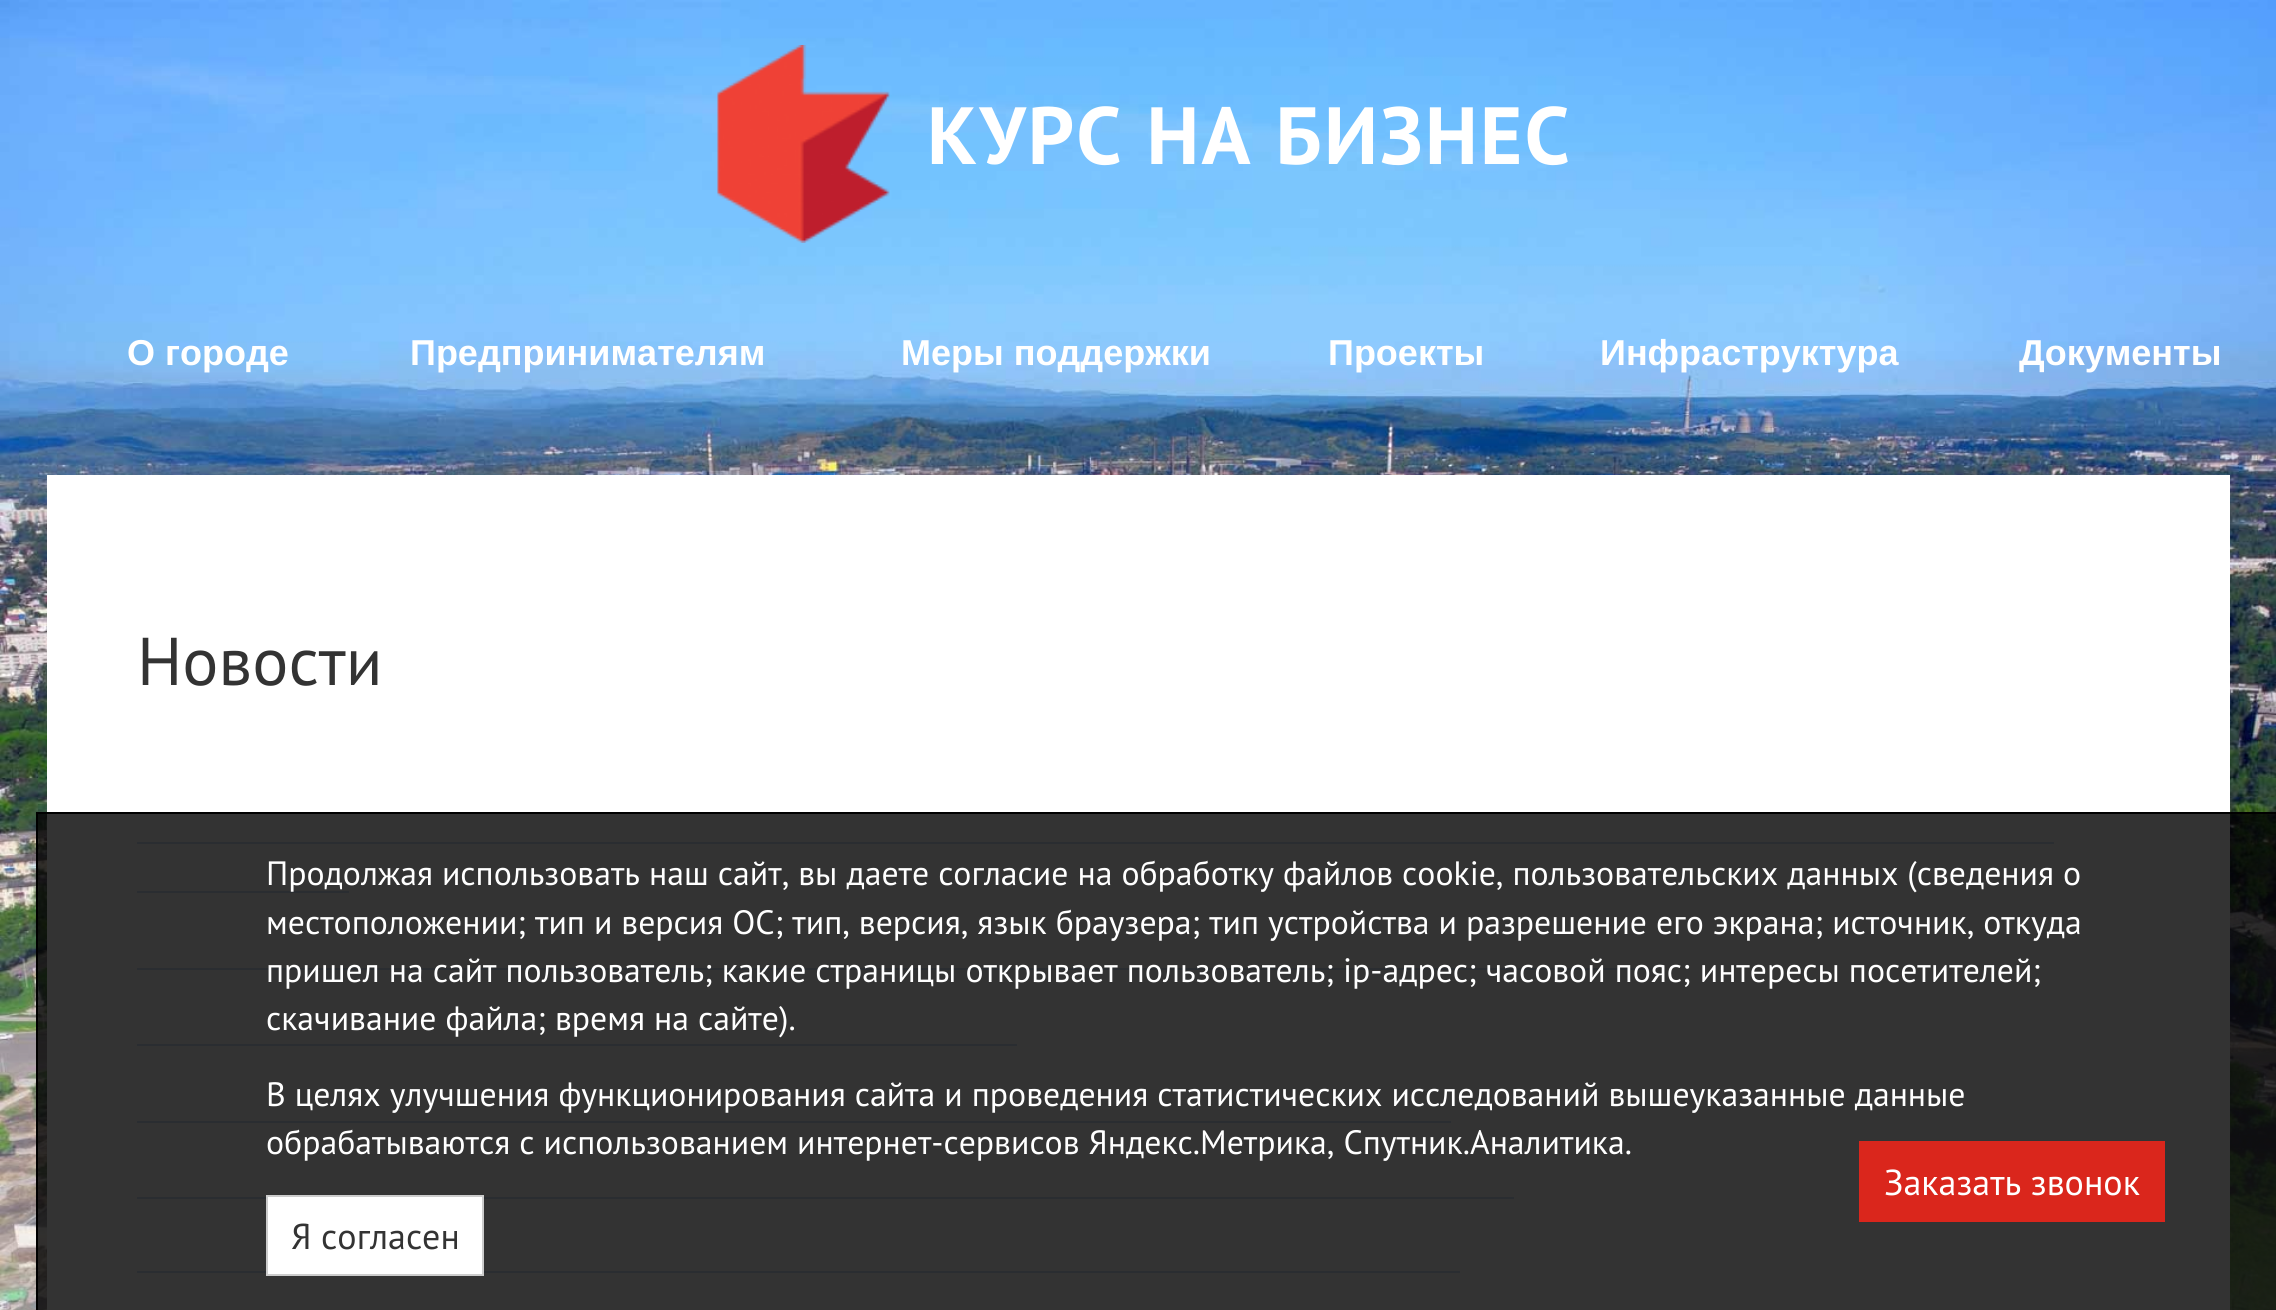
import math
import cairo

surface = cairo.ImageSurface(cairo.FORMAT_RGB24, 2276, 1310)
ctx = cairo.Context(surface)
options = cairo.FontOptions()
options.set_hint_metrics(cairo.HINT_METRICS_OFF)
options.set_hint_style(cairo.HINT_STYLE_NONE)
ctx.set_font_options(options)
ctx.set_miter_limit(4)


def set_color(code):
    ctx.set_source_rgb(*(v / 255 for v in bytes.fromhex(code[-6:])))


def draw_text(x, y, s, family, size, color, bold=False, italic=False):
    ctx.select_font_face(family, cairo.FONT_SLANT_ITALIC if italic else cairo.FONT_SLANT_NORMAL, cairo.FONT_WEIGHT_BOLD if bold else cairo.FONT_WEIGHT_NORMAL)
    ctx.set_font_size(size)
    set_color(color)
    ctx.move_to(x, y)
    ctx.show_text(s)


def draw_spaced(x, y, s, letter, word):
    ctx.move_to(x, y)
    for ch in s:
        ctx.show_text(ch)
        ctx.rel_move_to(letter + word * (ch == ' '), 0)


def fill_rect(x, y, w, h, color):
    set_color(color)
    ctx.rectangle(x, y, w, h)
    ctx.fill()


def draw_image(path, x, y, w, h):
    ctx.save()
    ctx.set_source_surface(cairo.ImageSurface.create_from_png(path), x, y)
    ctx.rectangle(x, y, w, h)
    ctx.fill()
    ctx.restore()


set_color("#ffffff")
ctx.paint()
draw_image("assets/img1.png", 0, 0, 2276, 1310)
draw_image("assets/img2.png", 717, 45, 173, 198)
ctx.select_font_face("PT Sans", cairo.FONT_SLANT_NORMAL, cairo.FONT_WEIGHT_BOLD)
ctx.set_font_size(81)
set_color("#ffffff")
draw_spaced(927, 164, "КУРС НА БИЗНЕС", 2.25, 0)
draw_text(127, 365, "О городе", "Liberation Sans", 36, "#ffffff", bold=True)
draw_text(410, 365, "Предпринимателям", "Liberation Sans", 36, "#ffffff", bold=True)
draw_text(901, 365, "Меры поддержки", "Liberation Sans", 36, "#ffffff", bold=True)
draw_text(1328, 365, "Проекты", "Liberation Sans", 36, "#ffffff", bold=True)
draw_text(1600, 365, "Инфраструктура", "Liberation Sans", 36, "#ffffff", bold=True)
draw_text(2019, 365, "Документы", "Liberation Sans", 36, "#ffffff", bold=True)
fill_rect(47, 475, 2183, 835, "#ffffff")
draw_text(137, 685, "Новости", "PT Sans", 67.5, "#333333")
fill_rect(137, 842, 1917, 2, "#d2e0f7")
fill_rect(137, 891, 212, 2, "#d2e0f7")
fill_rect(137, 968, 1515, 2, "#d2e0f7")
fill_rect(137, 1044, 880, 2, "#d2e0f7")
fill_rect(137, 1121, 1314, 2, "#d2e0f7")
fill_rect(137, 1197, 1377, 2, "#d2e0f7")
fill_rect(137, 1271, 1323, 2, "#d2e0f7")
ctx.set_source_rgba(0, 0, 0, 0.8)
ctx.rectangle(37, 813, 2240, 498)
ctx.fill_preserve()
set_color("#000000")
ctx.stroke()
draw_text(266, 885, "Продолжая использовать наш сайт, вы даете согласие на обработку файлов cookie, пользовательских данных (сведения о", "PT Sans", 33.75, "#ffffff")
draw_text(266, 934, "местоположении; тип и версия ОС; тип, версия, язык браузера; тип устройства и разрешение его экрана; источник, откуда", "PT Sans", 33.75, "#ffffff")
draw_text(266, 982, "пришел на сайт пользователь; какие страницы открывает пользователь; ip-адрес; часовой пояс; интересы посетителей;", "PT Sans", 33.75, "#ffffff")
draw_text(266, 1030, "скачивание файла; время на сайте).", "PT Sans", 33.75, "#ffffff")
draw_text(266, 1106, "В целях улучшения функционирования сайта и проведения статистических исследований вышеуказанные данные", "PT Sans", 33.75, "#ffffff")
draw_text(266, 1154, "обрабатываются с использованием интернет-сервисов Яндекс.Метрика, Спутник.Аналитика.", "PT Sans", 33.75, "#ffffff")
ctx.rectangle(267, 1196, 216, 79)
ctx.fill_preserve()
set_color("#cccccc")
ctx.stroke()
draw_text(291, 1249, "Я согласен", "PT Sans", 36, "#333333")
fill_rect(1859, 1141, 306, 81, "#da261c")
draw_text(1884, 1195, "Заказать звонок", "PT Sans", 36, "#ffffff")
surface.write_to_png("output.png")
